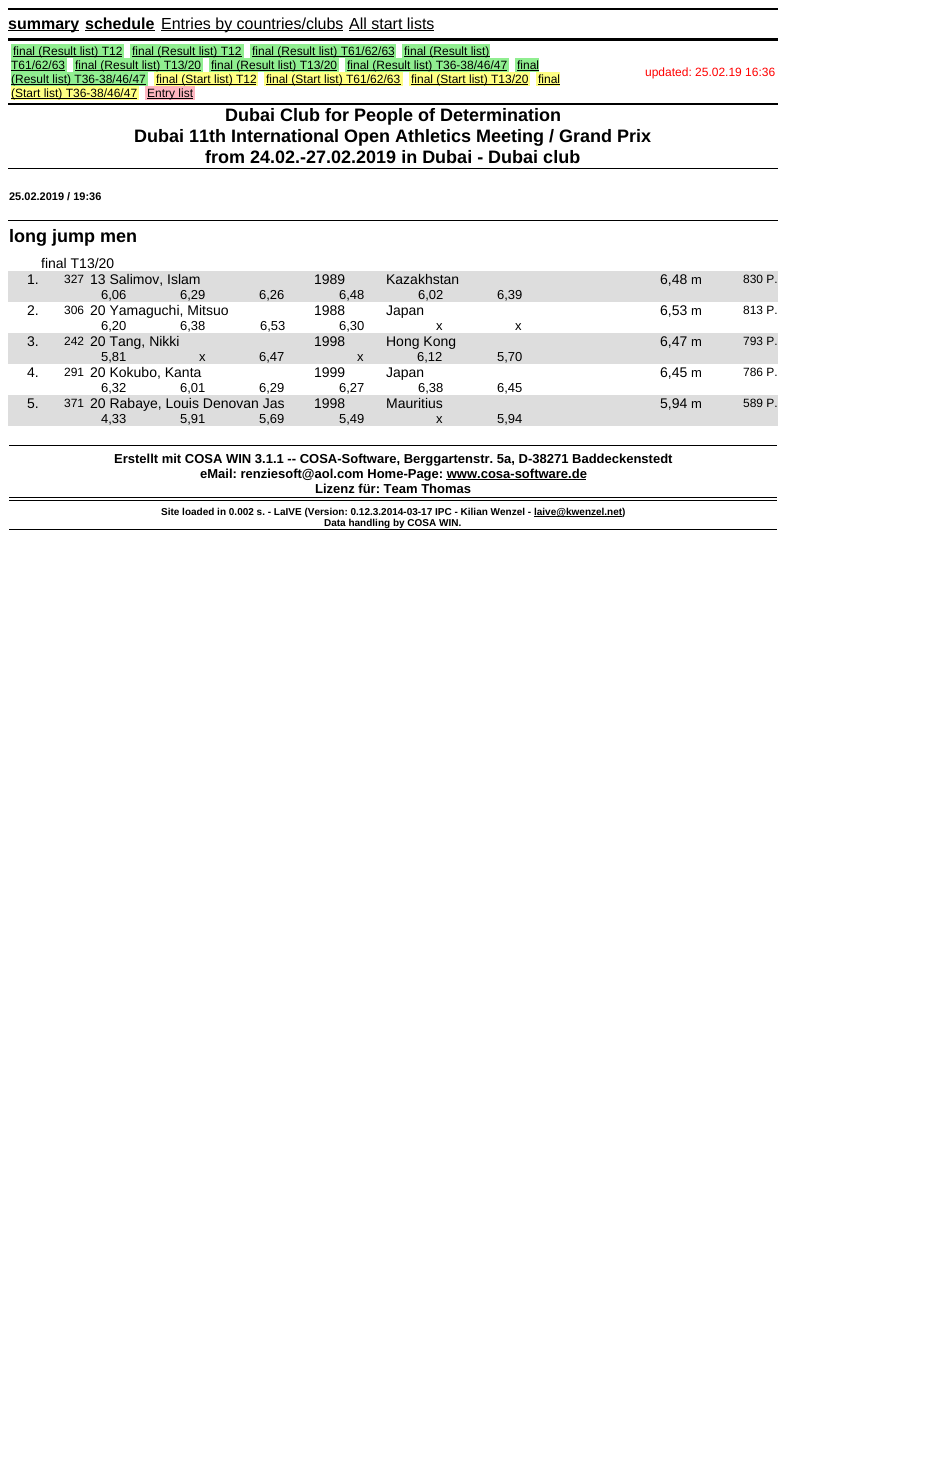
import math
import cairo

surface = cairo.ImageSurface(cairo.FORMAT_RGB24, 947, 1466)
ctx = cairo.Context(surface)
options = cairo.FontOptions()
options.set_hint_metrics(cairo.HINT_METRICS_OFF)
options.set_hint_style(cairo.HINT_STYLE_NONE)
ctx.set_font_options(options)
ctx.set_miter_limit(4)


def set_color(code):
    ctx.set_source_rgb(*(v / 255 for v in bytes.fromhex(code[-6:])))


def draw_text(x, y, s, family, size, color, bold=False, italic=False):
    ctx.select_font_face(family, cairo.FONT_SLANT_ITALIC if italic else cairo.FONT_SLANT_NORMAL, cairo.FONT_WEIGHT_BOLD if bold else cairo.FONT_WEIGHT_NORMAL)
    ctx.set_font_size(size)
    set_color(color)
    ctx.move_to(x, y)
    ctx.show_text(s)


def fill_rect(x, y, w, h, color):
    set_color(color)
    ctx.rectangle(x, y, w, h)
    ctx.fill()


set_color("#ffffff")
ctx.paint()
fill_rect(8, 8, 770, 2, "#000000")
fill_rect(8, 38, 770, 3, "#000000")
fill_rect(8, 30, 71, 1, "#000000")
draw_text(8, 29, "summary", "Liberation Sans", 16, "#000000", bold=True)
draw_text(85, 29, "schedule", "Liberation Sans", 16, "#000000", bold=True)
fill_rect(85, 30, 70, 1, "#000000")
fill_rect(161, 30, 182, 1, "#000000")
draw_text(161, 29, "Entries by countries/clubs", "Liberation Sans", 16, "#000000")
draw_text(349, 29, "All start lists", "Liberation Sans", 16, "#000000")
fill_rect(349, 30, 85, 1, "#000000")
fill_rect(8, 103, 770, 2, "#000000")
fill_rect(11, 44, 113, 14, "#90ee90")
fill_rect(13, 56, 109, 1, "#000000")
draw_text(13, 55, "final (Result list) T12", "Liberation Sans", 12, "#000000")
fill_rect(130, 44, 114, 14, "#90ee90")
fill_rect(132, 56, 110, 1, "#000000")
draw_text(132, 55, "final (Result list) T12", "Liberation Sans", 12, "#000000")
fill_rect(250, 44, 146, 14, "#90ee90")
fill_rect(252, 56, 142, 1, "#000000")
draw_text(252, 55, "final (Result list) T61/62/63", "Liberation Sans", 12, "#000000")
fill_rect(402, 44, 88, 14, "#90ee90")
fill_rect(404, 56, 86, 1, "#000000")
draw_text(404, 55, "final (Result list)", "Liberation Sans", 12, "#000000")
fill_rect(11, 58, 56, 14, "#90ee90")
draw_text(11, 69, "T61/62/63", "Liberation Sans", 12, "#000000")
fill_rect(11, 70, 54, 1, "#000000")
fill_rect(73, 58, 130, 14, "#90ee90")
fill_rect(75, 70, 126, 1, "#000000")
draw_text(75, 69, "final (Result list) T13/20", "Liberation Sans", 12, "#000000")
fill_rect(209, 58, 130, 14, "#90ee90")
fill_rect(211, 70, 126, 1, "#000000")
draw_text(211, 69, "final (Result list) T13/20", "Liberation Sans", 12, "#000000")
fill_rect(345, 58, 164, 14, "#90ee90")
fill_rect(347, 70, 160, 1, "#000000")
draw_text(347, 69, "final (Result list) T36-38/46/47", "Liberation Sans", 12, "#000000")
fill_rect(515, 58, 24, 14, "#90ee90")
draw_text(517, 69, "final", "Liberation Sans", 12, "#000000")
fill_rect(517, 70, 22, 1, "#000000")
fill_rect(11, 72, 137, 14, "#90ee90")
fill_rect(11, 84, 135, 1, "#000000")
draw_text(11, 83, "(Result list) T36-38/46/47", "Liberation Sans", 12, "#000000")
fill_rect(154, 72, 104, 14, "#ffff83")
fill_rect(156, 84, 100, 1, "#000000")
draw_text(156, 83, "final (Start list) T12", "Liberation Sans", 12, "#000000")
fill_rect(264, 72, 139, 14, "#ffff83")
fill_rect(266, 84, 135, 1, "#000000")
draw_text(266, 83, "final (Start list) T61/62/63", "Liberation Sans", 12, "#000000")
fill_rect(409, 72, 121, 14, "#ffff83")
fill_rect(411, 84, 117, 1, "#000000")
draw_text(411, 83, "final (Start list) T13/20", "Liberation Sans", 12, "#000000")
fill_rect(536, 72, 24, 14, "#ffff83")
draw_text(538, 83, "final", "Liberation Sans", 12, "#000000")
fill_rect(538, 84, 22, 1, "#000000")
fill_rect(11, 86, 128, 14, "#ffff83")
fill_rect(11, 98, 126, 1, "#000000")
draw_text(11, 97, "(Start list) T36-38/46/47", "Liberation Sans", 12, "#000000")
fill_rect(145, 86, 50, 14, "#ffb6c1")
fill_rect(147, 98, 46, 1, "#000000")
draw_text(147, 97, "Entry list", "Liberation Sans", 12, "#000000")
draw_text(645, 76, "updated: 25.02.19 16:36", "Liberation Sans", 12, "#ff0000")
draw_text(225, 121, "Dubai Club for People of Determination", "Liberation Sans", 18, "#000000", bold=True)
draw_text(134, 142, "Dubai 11th International Open Athletics Meeting / Grand Prix", "Liberation Sans", 18, "#000000", bold=True)
fill_rect(8, 168, 770, 1, "#000000")
draw_text(205, 163, "from 24.02.-27.02.2019 in Dubai - Dubai club", "Liberation Sans", 18, "#000000", bold=True)
draw_text(9, 200, "25.02.2019 / 19:36", "Liberation Sans", 11, "#000000", bold=True)
fill_rect(8, 220, 770, 1, "#000000")
draw_text(9, 242, "long jump men", "Liberation Sans", 18, "#000000", bold=True)
draw_text(41, 268, "final T13/20", "Liberation Sans", 14, "#000000")
fill_rect(8, 271, 770, 16, "#dddddd")
draw_text(27, 284, "1.", "Liberation Sans", 14, "#000000")
draw_text(64, 283, "327", "Liberation Sans", 12, "#000000")
draw_text(90, 284, "13 Salimov, Islam", "Liberation Sans", 14, "#000000")
draw_text(314, 284, "1989", "Liberation Sans", 14, "#000000")
draw_text(386, 284, "Kazakhstan", "Liberation Sans", 14, "#000000")
draw_text(660, 284, "6,48", "Liberation Sans", 14, "#000000")
draw_text(691, 284, "m", "Liberation Sans", 13, "#000000")
draw_text(743, 283, "830 P.", "Liberation Sans", 12, "#000000")
fill_rect(8, 287, 770, 15, "#dddddd")
draw_text(101, 299, "6,06", "Liberation Sans", 13, "#000000")
draw_text(180, 299, "6,29", "Liberation Sans", 13, "#000000")
draw_text(259, 299, "6,26", "Liberation Sans", 13, "#000000")
draw_text(339, 299, "6,48", "Liberation Sans", 13, "#000000")
draw_text(418, 299, "6,02", "Liberation Sans", 13, "#000000")
draw_text(497, 299, "6,39", "Liberation Sans", 13, "#000000")
draw_text(27, 315, "2.", "Liberation Sans", 14, "#000000")
draw_text(64, 314, "306", "Liberation Sans", 12, "#000000")
draw_text(90, 315, "20 Yamaguchi, Mitsuo", "Liberation Sans", 14, "#000000")
draw_text(314, 315, "1988", "Liberation Sans", 14, "#000000")
draw_text(386, 315, "Japan", "Liberation Sans", 14, "#000000")
draw_text(660, 315, "6,53", "Liberation Sans", 14, "#000000")
draw_text(691, 315, "m", "Liberation Sans", 13, "#000000")
draw_text(743, 314, "813 P.", "Liberation Sans", 12, "#000000")
draw_text(101, 330, "6,20", "Liberation Sans", 13, "#000000")
draw_text(180, 330, "6,38", "Liberation Sans", 13, "#000000")
draw_text(260, 330, "6,53", "Liberation Sans", 13, "#000000")
draw_text(339, 330, "6,30", "Liberation Sans", 13, "#000000")
draw_text(436, 330, "x", "Liberation Sans", 13, "#000000")
draw_text(515, 330, "x", "Liberation Sans", 13, "#000000")
fill_rect(8, 333, 770, 16, "#dddddd")
draw_text(27, 346, "3.", "Liberation Sans", 14, "#000000")
draw_text(64, 345, "242", "Liberation Sans", 12, "#000000")
draw_text(90, 346, "20 Tang, Nikki", "Liberation Sans", 14, "#000000")
draw_text(314, 346, "1998", "Liberation Sans", 14, "#000000")
draw_text(386, 346, "Hong Kong", "Liberation Sans", 14, "#000000")
draw_text(660, 346, "6,47", "Liberation Sans", 14, "#000000")
draw_text(691, 346, "m", "Liberation Sans", 13, "#000000")
draw_text(743, 345, "793 P.", "Liberation Sans", 12, "#000000")
fill_rect(8, 349, 770, 15, "#dddddd")
draw_text(101, 361, "5,81", "Liberation Sans", 13, "#000000")
draw_text(199, 361, "x", "Liberation Sans", 13, "#000000")
draw_text(259, 361, "6,47", "Liberation Sans", 13, "#000000")
draw_text(357, 361, "x", "Liberation Sans", 13, "#000000")
draw_text(417, 361, "6,12", "Liberation Sans", 13, "#000000")
draw_text(497, 361, "5,70", "Liberation Sans", 13, "#000000")
draw_text(27, 377, "4.", "Liberation Sans", 14, "#000000")
draw_text(64, 376, "291", "Liberation Sans", 12, "#000000")
draw_text(90, 377, "20 Kokubo, Kanta", "Liberation Sans", 14, "#000000")
draw_text(314, 377, "1999", "Liberation Sans", 14, "#000000")
draw_text(386, 377, "Japan", "Liberation Sans", 14, "#000000")
draw_text(660, 377, "6,45", "Liberation Sans", 14, "#000000")
draw_text(691, 377, "m", "Liberation Sans", 13, "#000000")
draw_text(743, 376, "786 P.", "Liberation Sans", 12, "#000000")
draw_text(101, 392, "6,32", "Liberation Sans", 13, "#000000")
draw_text(180, 392, "6,01", "Liberation Sans", 13, "#000000")
draw_text(259, 392, "6,29", "Liberation Sans", 13, "#000000")
draw_text(339, 392, "6,27", "Liberation Sans", 13, "#000000")
draw_text(418, 392, "6,38", "Liberation Sans", 13, "#000000")
draw_text(497, 392, "6,45", "Liberation Sans", 13, "#000000")
fill_rect(8, 395, 770, 16, "#dddddd")
draw_text(27, 408, "5.", "Liberation Sans", 14, "#000000")
draw_text(64, 407, "371", "Liberation Sans", 12, "#000000")
draw_text(90, 408, "20 Rabaye, Louis Denovan Jas", "Liberation Sans", 14, "#000000")
draw_text(314, 408, "1998", "Liberation Sans", 14, "#000000")
draw_text(386, 408, "Mauritius", "Liberation Sans", 14, "#000000")
draw_text(660, 408, "5,94", "Liberation Sans", 14, "#000000")
draw_text(691, 408, "m", "Liberation Sans", 13, "#000000")
draw_text(743, 407, "589 P.", "Liberation Sans", 12, "#000000")
fill_rect(8, 411, 770, 15, "#dddddd")
draw_text(101, 423, "4,33", "Liberation Sans", 13, "#000000")
draw_text(180, 423, "5,91", "Liberation Sans", 13, "#000000")
draw_text(259, 423, "5,69", "Liberation Sans", 13, "#000000")
draw_text(339, 423, "5,49", "Liberation Sans", 13, "#000000")
draw_text(436, 423, "x", "Liberation Sans", 13, "#000000")
draw_text(497, 423, "5,94", "Liberation Sans", 13, "#000000")
fill_rect(9, 445, 768, 1, "#000000")
fill_rect(9, 497, 768, 1, "#000000")
draw_text(114, 463, "Erstellt mit COSA WIN 3.1.1 -- COSA-Software, Berggartenstr. 5a, D-38271 Baddeckenstedt", "Liberation Sans", 13, "#000000", bold=True)
draw_text(200, 478, "eMail: renziesoft@aol.com Home-Page: www.cosa-software.de", "Liberation Sans", 13, "#000000", bold=True)
fill_rect(446, 479, 140, 1, "#000000")
draw_text(315, 493, "Lizenz für: Team Thomas", "Liberation Sans", 13, "#000000", bold=True)
fill_rect(9, 500, 768, 1, "#000000")
fill_rect(9, 529, 768, 1, "#000000")
draw_text(161, 515, "Site loaded in 0.002 s. - LaIVE (Version: 0.12.3.2014-03-17 IPC - Kilian Wenzel -", "Liberation Sans", 10, "#000000", bold=True)
fill_rect(534, 516, 88, 1, "#000000")
draw_text(534, 515, "laive@kwenzel.net)", "Liberation Sans", 10, "#000000", bold=True)
draw_text(324, 526, "Data handling by COSA WIN.", "Liberation Sans", 10, "#000000", bold=True)
surface.write_to_png("output.png")
